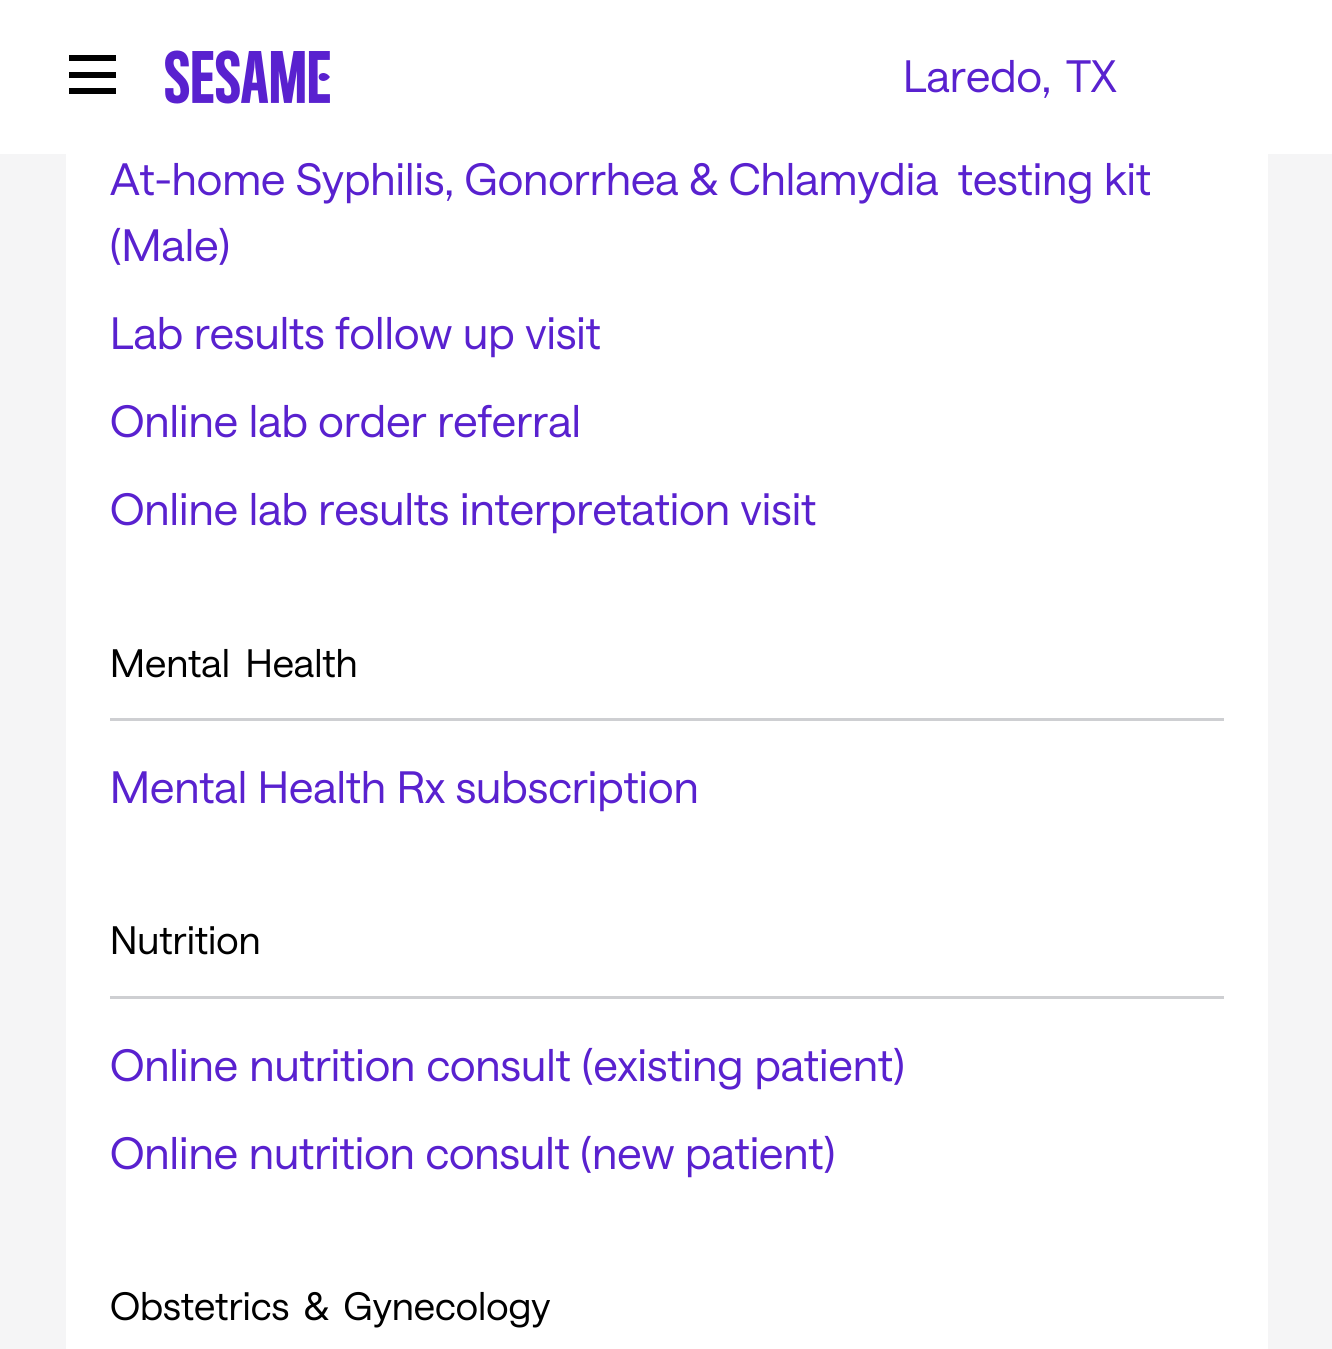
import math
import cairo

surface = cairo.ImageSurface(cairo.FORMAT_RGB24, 1332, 1349)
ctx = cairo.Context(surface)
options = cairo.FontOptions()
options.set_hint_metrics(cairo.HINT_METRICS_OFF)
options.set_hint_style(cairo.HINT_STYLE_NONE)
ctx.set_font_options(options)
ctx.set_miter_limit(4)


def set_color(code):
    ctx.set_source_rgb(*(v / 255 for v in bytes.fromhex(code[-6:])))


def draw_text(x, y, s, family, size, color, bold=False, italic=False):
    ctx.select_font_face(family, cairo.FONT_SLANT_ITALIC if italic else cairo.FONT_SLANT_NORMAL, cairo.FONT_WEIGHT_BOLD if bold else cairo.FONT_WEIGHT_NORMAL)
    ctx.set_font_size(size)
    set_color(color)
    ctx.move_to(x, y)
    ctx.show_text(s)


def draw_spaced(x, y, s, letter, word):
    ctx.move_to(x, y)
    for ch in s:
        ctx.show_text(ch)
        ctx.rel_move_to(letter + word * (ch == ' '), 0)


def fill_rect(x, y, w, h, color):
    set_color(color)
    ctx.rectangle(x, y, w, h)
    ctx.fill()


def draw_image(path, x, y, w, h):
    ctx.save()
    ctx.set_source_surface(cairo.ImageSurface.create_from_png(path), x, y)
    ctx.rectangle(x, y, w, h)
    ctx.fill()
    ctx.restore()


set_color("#f5f5f6")
ctx.paint()
fill_rect(0, 0, 1332, 154, "#ffffff")
fill_rect(69, 55, 47, 6, "#000000")
fill_rect(69, 72, 47, 6, "#000000")
fill_rect(69, 88, 47, 6, "#000000")
draw_image("assets/img1.png", 165, 50, 165, 54)
ctx.select_font_face("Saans")
ctx.set_font_size(44)
set_color("#5921cf")
draw_spaced(903, 92, "Laredo, TX", 0, 5)
fill_rect(66, 154, 1202, 1195, "#ffffff")
set_color("#5921cf")
draw_spaced(110, 195, "At-home Syphilis, Gonorrhea & Chlamydia", 0, 1)
draw_spaced(958, 195, "testing kit", 0, 1)
draw_text(110, 261, "(Male)", "Saans", 44, "#5921cf")
draw_spaced(110, 349, "Lab results follow up visit", 0, 1)
draw_spaced(110, 437, "Online lab order referral", 0, 1)
draw_spaced(110, 525, "Online lab results interpretation visit", 0, 1)
fill_rect(110, 718, 1114, 3, "#cecfd2")
ctx.set_font_size(38.5)
set_color("#000000")
draw_spaced(110, 677, "Mental Health", 0, 7)
ctx.set_font_size(44)
set_color("#5921cf")
draw_spaced(110, 803, "Mental Health Rx subscription", 0, 1)
fill_rect(110, 996, 1114, 3, "#cecfd2")
draw_text(110, 954, "Nutrition", "Saans", 38.5, "#000000")
ctx.set_font_size(44)
set_color("#5921cf")
draw_spaced(110, 1081, "Online nutrition consult (existing patient)", 0, 1.5)
draw_spaced(110, 1169, "Online nutrition consult (new patient)", 0, 1)
ctx.set_font_size(38.5)
set_color("#000000")
draw_spaced(110, 1320, "Obstetrics & Gynecology", 0, 6)
surface.write_to_png("output.png")
